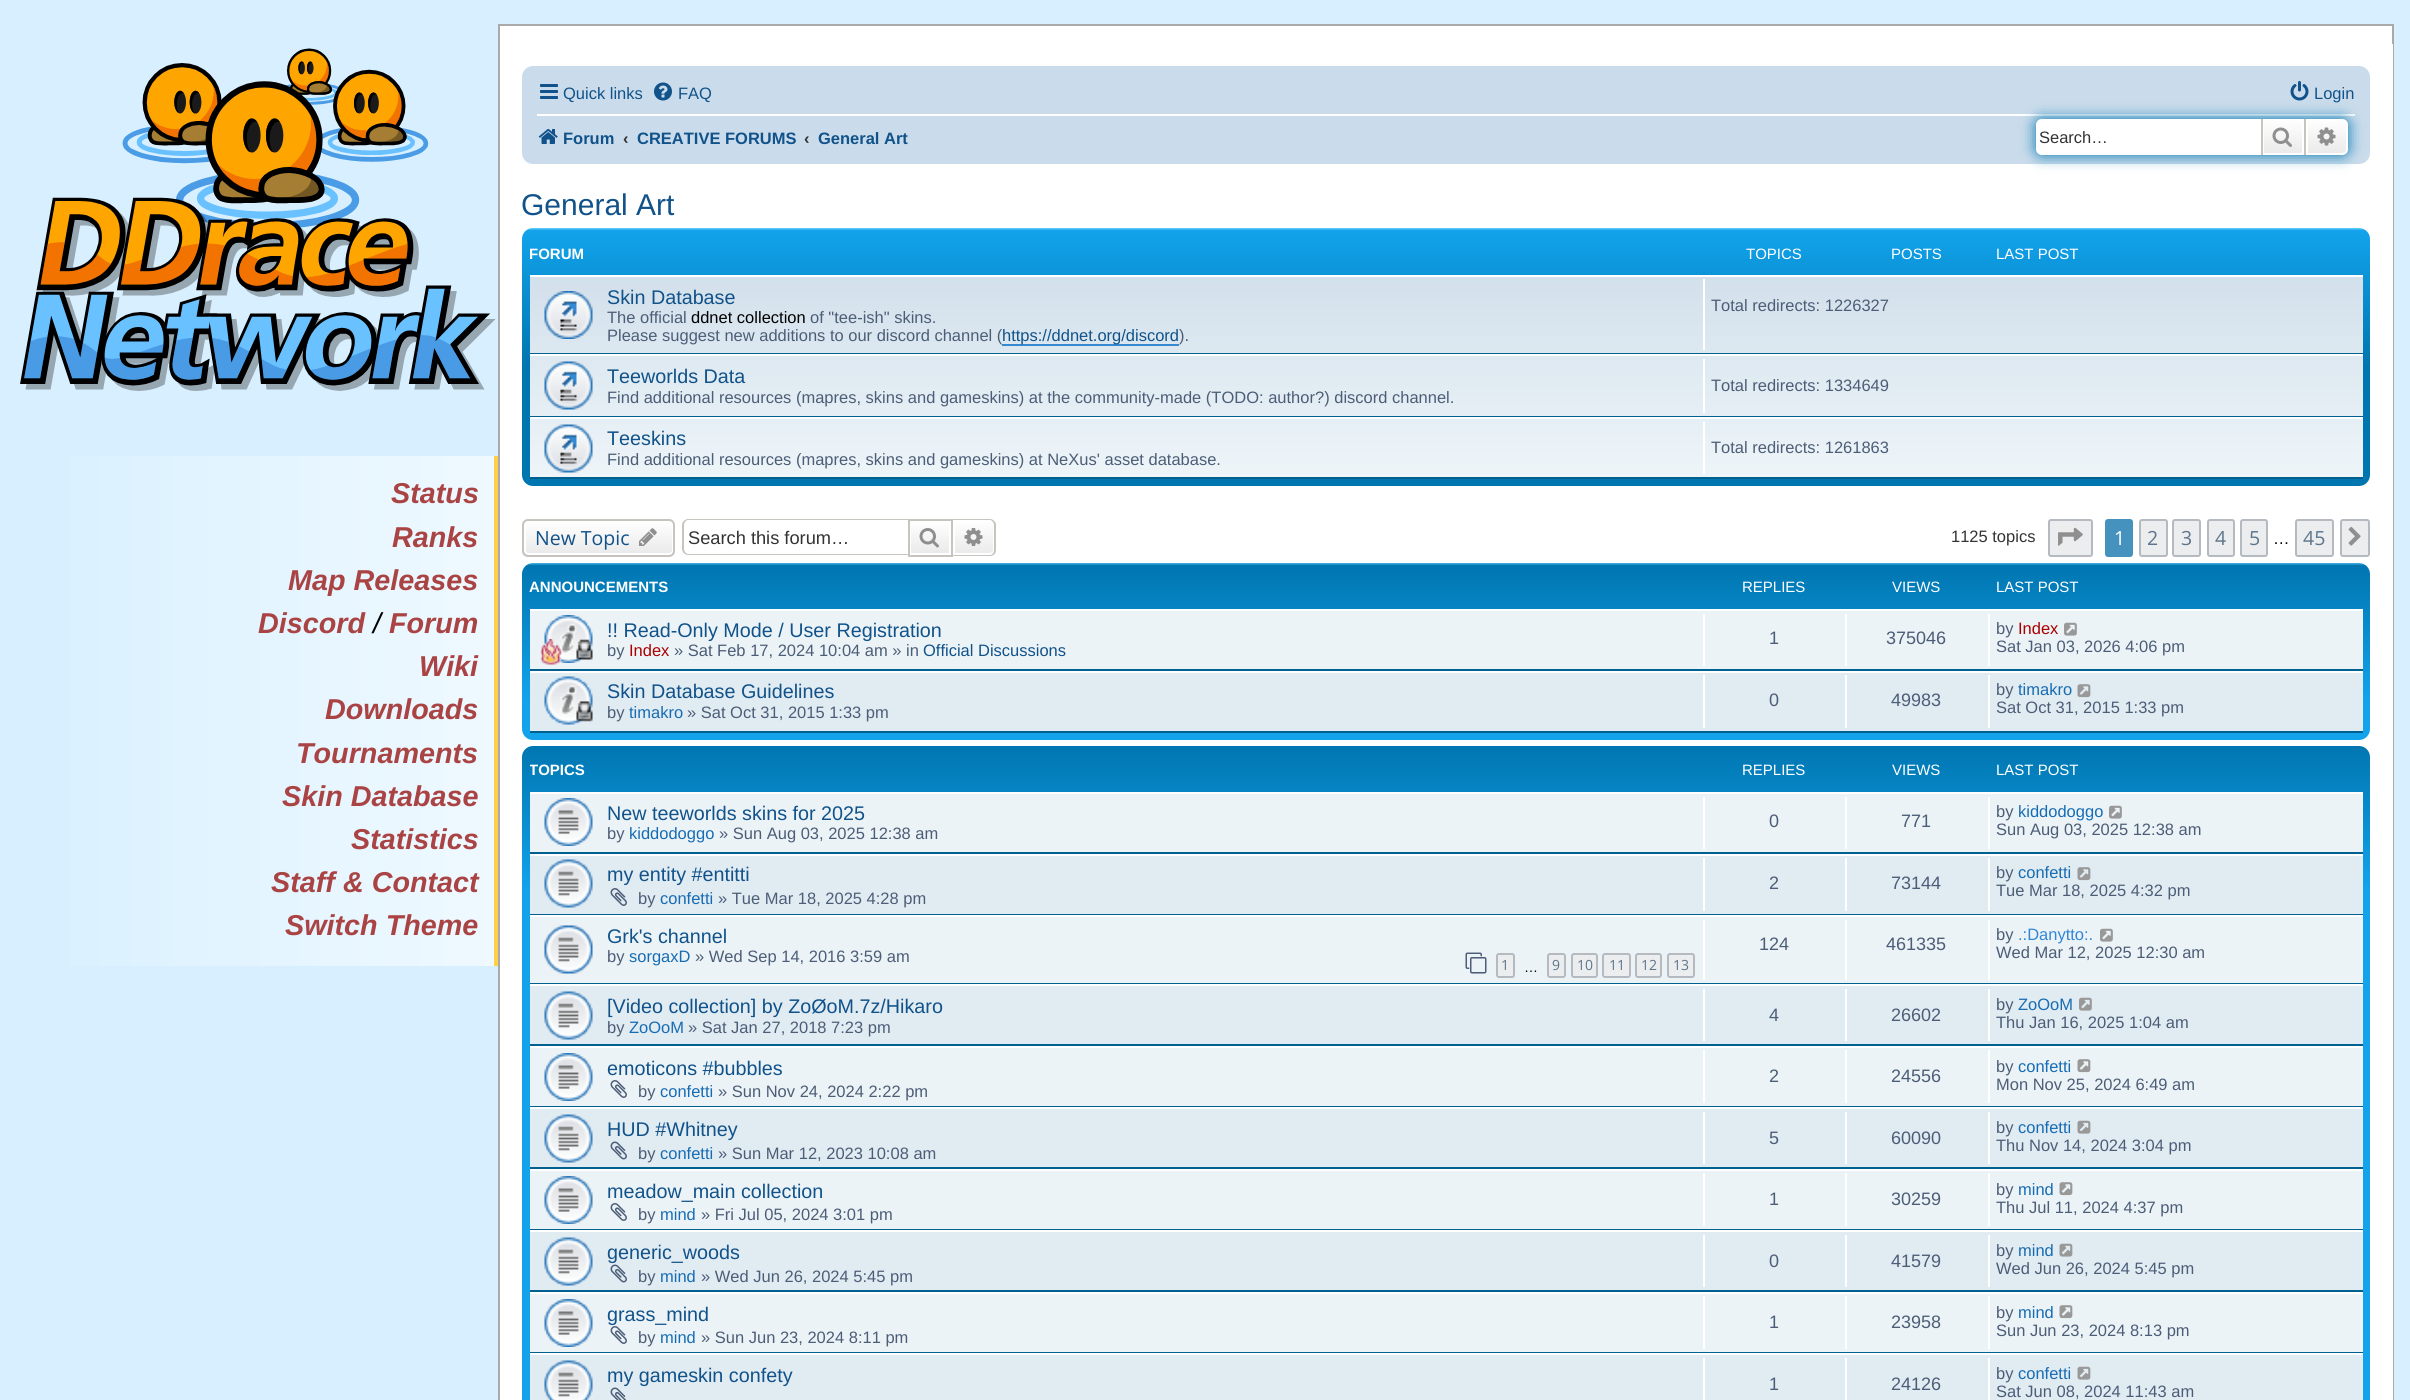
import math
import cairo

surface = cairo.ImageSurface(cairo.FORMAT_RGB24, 2410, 1400)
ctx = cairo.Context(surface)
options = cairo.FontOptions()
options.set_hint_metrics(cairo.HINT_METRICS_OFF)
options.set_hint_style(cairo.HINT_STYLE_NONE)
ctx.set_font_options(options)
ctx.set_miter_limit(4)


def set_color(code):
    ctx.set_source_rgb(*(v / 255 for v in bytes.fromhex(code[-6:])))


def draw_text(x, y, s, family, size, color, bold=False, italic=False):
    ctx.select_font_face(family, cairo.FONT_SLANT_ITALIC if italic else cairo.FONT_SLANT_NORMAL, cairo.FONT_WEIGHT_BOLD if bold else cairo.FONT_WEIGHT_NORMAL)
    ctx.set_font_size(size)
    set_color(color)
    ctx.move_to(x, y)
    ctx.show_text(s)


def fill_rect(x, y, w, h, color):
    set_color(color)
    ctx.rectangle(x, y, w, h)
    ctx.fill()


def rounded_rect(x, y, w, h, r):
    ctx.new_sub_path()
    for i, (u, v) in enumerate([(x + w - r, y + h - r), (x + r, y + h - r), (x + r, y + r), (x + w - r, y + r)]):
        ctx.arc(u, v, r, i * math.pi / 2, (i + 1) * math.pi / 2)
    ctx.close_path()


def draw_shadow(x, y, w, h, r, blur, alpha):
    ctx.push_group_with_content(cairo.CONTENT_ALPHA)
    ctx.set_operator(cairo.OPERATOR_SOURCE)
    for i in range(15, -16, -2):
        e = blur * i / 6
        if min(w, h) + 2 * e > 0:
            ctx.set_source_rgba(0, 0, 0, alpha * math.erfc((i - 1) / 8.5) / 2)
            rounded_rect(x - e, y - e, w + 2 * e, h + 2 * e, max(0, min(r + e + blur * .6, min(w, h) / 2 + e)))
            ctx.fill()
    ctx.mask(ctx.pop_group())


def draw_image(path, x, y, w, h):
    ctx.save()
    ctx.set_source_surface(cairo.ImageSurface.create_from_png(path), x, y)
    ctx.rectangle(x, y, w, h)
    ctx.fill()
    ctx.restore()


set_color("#d8efff")
ctx.paint()
gradient = cairo.LinearGradient(18, 711, 494, 711)
gradient.add_color_stop_rgba(0, 0.847, 0.941, 1, 1)
gradient.add_color_stop_rgba(1, 0.937, 0.976, 1, 1)
ctx.set_source(gradient)
ctx.rectangle(70, 456, 424, 510)
ctx.fill()
fill_rect(494, 456, 4, 510, "#ffd246")
draw_image("assets/img1.png", 20, 48, 476, 343)
draw_text(391, 503, "Status", "Liberation Sans", 28.75, "#aa4444", bold=True, italic=True)
draw_text(392, 547, "Ranks", "Liberation Sans", 28.75, "#aa4444", bold=True, italic=True)
draw_text(288, 590, "Map Releases", "Liberation Sans", 28.75, "#aa4444", bold=True, italic=True)
draw_text(258, 633, "Discord", "Liberation Sans", 28.75, "#aa4444", bold=True, italic=True)
draw_text(373, 633, "/", "Liberation Sans", 28.75, "#000000", italic=True)
draw_text(389, 633, "Forum", "Liberation Sans", 28.75, "#aa4444", bold=True, italic=True)
draw_text(419, 676, "Wiki", "Liberation Sans", 28.75, "#aa4444", bold=True, italic=True)
draw_text(325, 719, "Downloads", "Liberation Sans", 28.75, "#aa4444", bold=True, italic=True)
draw_text(296, 763, "Tournaments", "Liberation Sans", 28.75, "#aa4444", bold=True, italic=True)
draw_text(282, 806, "Skin Database", "Liberation Sans", 28.75, "#aa4444", bold=True, italic=True)
draw_text(351, 849, "Statistics", "Liberation Sans", 28.75, "#aa4444", bold=True, italic=True)
draw_text(271, 892, "Staff & Contact", "Liberation Sans", 28.75, "#aa4444", bold=True, italic=True)
draw_text(285, 935, "Switch Theme", "Liberation Sans", 28.75, "#aa4444", bold=True, italic=True)
fill_rect(500, 26, 1892, 18, "#ffffff")
ctx.rectangle(499, 25, 1894, 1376)
set_color("#aaaaaa")
ctx.stroke()
fill_rect(500, 44, 1893, 1356, "#ffffff")
set_color("#cadceb")
rounded_rect(522, 66, 1848, 98, 11)
ctx.fill()
draw_image("assets/img2.png", 540, 84, 18, 15)
draw_text(563, 99, "Quick links", "Liberation Sans", 16.5, "#105289")
draw_image("assets/img3.png", 654, 82, 18, 19)
draw_text(678, 99, "FAQ", "Liberation Sans", 16.5, "#105289")
draw_image("assets/img4.png", 2290, 81, 19, 20)
draw_text(2314, 99, "Login", "Liberation Sans", 16.5, "#105289")
fill_rect(537, 114, 1818, 2, "#ffffff")
draw_image("assets/img5.png", 538, 129, 20, 15)
draw_text(563, 144, "Forum", "Liberation Sans", 16.5, "#105289", bold=True)
draw_text(623, 144, "‹", "Liberation Sans", 16.5, "#333333", bold=True)
draw_text(637, 144, "CREATIVE FORUMS", "Liberation Sans", 16.5, "#105289", bold=True)
draw_text(804, 144, "‹", "Liberation Sans", 16.5, "#333333", bold=True)
draw_text(818, 144, "General Art", "Liberation Sans", 16.5, "#105289", bold=True)
set_color("#0075b0")
draw_shadow(2036, 119, 312, 36, 6, 7.5, 1)
set_color("#ffffff")
ctx.new_path()
ctx.move_to(2042, 119)
ctx.line_to(2261, 119)
ctx.line_to(2261, 155)
ctx.line_to(2042, 155)
ctx.curve_to(2038.5, 155, 2036, 152.5, 2036, 149)
ctx.line_to(2036, 125)
ctx.curve_to(2036, 121.5, 2038.5, 119, 2042, 119)
ctx.close_path()
ctx.fill()
draw_text(2039, 143, "Search…", "Liberation Sans", 16.5, "#333333")
gradient = cairo.LinearGradient(2283, 119, 2283, 155)
gradient.add_color_stop_rgba(0, 1, 1, 1, 1)
gradient.add_color_stop_rgba(1, 0.914, 0.914, 0.914, 1)
ctx.set_source(gradient)
ctx.rectangle(2264, 121, 38, 32)
ctx.fill()
ctx.rectangle(2263, 120, 40, 34)
set_color("#ffffff")
ctx.stroke()
fill_rect(2304, 119, 2, 36, "#c7c3bf")
fill_rect(2261, 119, 2, 36, "#c7c3bf")
draw_image("assets/img6.png", 2272, 127, 20, 20)
gradient = cairo.LinearGradient(2327, 119, 2327, 155)
gradient.add_color_stop_rgba(0, 1, 1, 1, 1)
gradient.add_color_stop_rgba(1, 0.914, 0.914, 0.914, 1)
ctx.set_source(gradient)
ctx.new_path()
ctx.move_to(2307, 120)
ctx.line_to(2342, 120)
ctx.curve_to(2345, 120, 2347, 122, 2347, 125)
ctx.line_to(2347, 149)
ctx.curve_to(2347, 152, 2345, 154, 2342, 154)
ctx.line_to(2307, 154)
ctx.close_path()
ctx.fill_preserve()
set_color("#ffffff")
ctx.stroke()
draw_image("assets/img7.png", 2317, 127, 19, 19)
draw_text(521, 215, "General Art", "Liberation Sans", 30, "#105289")
gradient = cairo.LinearGradient(1446, 228, 1446, 486)
gradient.add_color_stop_rgba(0, 0.416, 0.808, 1, 1)
gradient.add_color_stop_rgba(0.01, 0.071, 0.639, 0.922, 1)
gradient.add_color_stop_rgba(0.53, 0, 0.463, 0.694, 1)
gradient.add_color_stop_rgba(1, 0, 0.463, 0.694, 1)
ctx.set_source(gradient)
rounded_rect(522, 228, 1848, 258, 11)
ctx.fill()
ctx.save()
ctx.rectangle(530, 236, 1833, 39)
ctx.clip()
draw_text(529, 259, "FORUM", "Liberation Sans", 15, "#ffffff", bold=True)
ctx.restore()
draw_text(1746, 259, "TOPICS", "Liberation Sans", 15, "#ffffff")
draw_text(1891, 259, "POSTS", "Liberation Sans", 15, "#ffffff")
draw_text(1996, 259, "LAST POST", "Liberation Sans", 15, "#ffffff")
gradient = cairo.LinearGradient(1446, 274, 1446, 479)
gradient.add_color_stop_rgba(0, 0.824, 0.878, 0.922, 1)
gradient.add_color_stop_rgba(1, 0.933, 0.961, 0.976, 1)
ctx.set_source(gradient)
ctx.rectangle(530, 277, 1833, 200)
ctx.fill()
fill_rect(530, 275, 1833, 2, "#ffffff")
fill_rect(530, 353, 1833, 1, "#00608f")
draw_image("assets/img8.png", 544, 291, 49, 48)
draw_text(607, 304, "Skin Database", "Liberation Sans", 19.75, "#105289")
draw_text(607, 323, "The official", "Liberation Sans", 16.5, "#4c5d77")
draw_text(691, 323, "ddnet collection", "Liberation Sans", 16.5, "#000000")
draw_text(810, 323, "of \"tee-ish\" skins.", "Liberation Sans", 16.5, "#4c5d77")
draw_text(607, 341, "Please suggest new additions to our discord channel (", "Liberation Sans", 16.5, "#4c5d77")
fill_rect(1002, 344, 177, 2, "#368ad2")
draw_text(1002, 341, "https://ddnet.org/discord", "Liberation Sans", 16.5, "#105289")
draw_text(1179, 341, ").", "Liberation Sans", 16.5, "#4c5d77")
fill_rect(1703, 279, 2, 71, "#ffffff")
draw_text(1711, 311, "Total redirects: 1226327", "Liberation Sans", 16.5, "#4c5d77")
fill_rect(530, 354, 1833, 2, "#ffffff")
fill_rect(530, 416, 1833, 1, "#00608f")
draw_image("assets/img9.png", 544, 361, 49, 49)
draw_text(607, 383, "Teeworlds Data", "Liberation Sans", 19.75, "#105289")
draw_text(607, 403, "Find additional resources (mapres, skins and gameskins) at the community-made (TODO: author?) discord channel.", "Liberation Sans", 16.5, "#4c5d77")
fill_rect(1703, 359, 2, 54, "#ffffff")
draw_text(1711, 391, "Total redirects: 1334649", "Liberation Sans", 16.5, "#4c5d77")
fill_rect(530, 417, 1833, 2, "#ffffff")
fill_rect(530, 477, 1833, 2, "#00608f")
draw_image("assets/img10.png", 544, 424, 49, 49)
draw_text(607, 445, "Teeskins", "Liberation Sans", 19.75, "#105289")
draw_text(607, 465, "Find additional resources (mapres, skins and gameskins) at NeXus' asset database.", "Liberation Sans", 16.5, "#4c5d77")
fill_rect(1703, 422, 2, 52, "#ffffff")
draw_text(1711, 453, "Total redirects: 1261863", "Liberation Sans", 16.5, "#4c5d77")
ctx.save()
rounded_rect(522, 519, 153, 38, 6)
ctx.clip()
gradient = cairo.LinearGradient(599, 521, 599, 555)
gradient.add_color_stop_rgba(0, 1, 1, 1, 1)
gradient.add_color_stop_rgba(1, 0.914, 0.914, 0.914, 1)
ctx.set_source(gradient)
ctx.rectangle(522, 521, 153, 34)
ctx.fill()
ctx.restore()
rounded_rect(525, 522, 148, 32, 4)
set_color("#ffffff")
ctx.stroke()
rounded_rect(523, 520, 151, 36, 5)
set_color("#c7c3bf")
ctx.stroke()
draw_text(535, 545, "New Topic", "Open Sans", 19.5, "#105289")
draw_image("assets/img11.png", 639, 528, 18, 18)
set_color("#c7c3bf")
ctx.set_fill_rule(cairo.FILL_RULE_EVEN_ODD)
ctx.new_path()
ctx.move_to(688, 519)
ctx.line_to(908, 519)
ctx.line_to(908, 555)
ctx.line_to(688, 555)
ctx.curve_to(685, 555, 682, 552, 682, 549)
ctx.line_to(682, 525)
ctx.curve_to(682, 522, 685, 519, 688, 519)
ctx.close_path()
ctx.move_to(688, 520)
ctx.line_to(908, 520)
ctx.line_to(908, 554)
ctx.line_to(688, 554)
ctx.curve_to(686, 554, 684, 551, 684, 549)
ctx.line_to(684, 525)
ctx.curve_to(684, 523, 686, 520, 688, 520)
ctx.close_path()
ctx.fill()
draw_text(688, 544, "Search this forum…", "Liberation Sans", 18.25, "#333333")
gradient = cairo.LinearGradient(930, 521, 930, 555)
gradient.add_color_stop_rgba(0, 1, 1, 1, 1)
gradient.add_color_stop_rgba(1, 0.914, 0.914, 0.914, 1)
ctx.set_source(gradient)
ctx.rectangle(911, 525, 38, 28)
ctx.fill()
ctx.rectangle(909, 520, 43, 36)
set_color("#c7c3bf")
ctx.stroke()
draw_image("assets/img12.png", 919, 528, 20, 20)
gradient = cairo.LinearGradient(974, 521, 974, 555)
gradient.add_color_stop_rgba(0, 1, 1, 1, 1)
gradient.add_color_stop_rgba(1, 0.914, 0.914, 0.914, 1)
ctx.set_source(gradient)
ctx.new_path()
ctx.move_to(954, 522)
ctx.line_to(990, 522)
ctx.curve_to(992, 522, 994, 524, 994, 526)
ctx.line_to(994, 550)
ctx.curve_to(994, 552, 992, 554, 990, 554)
ctx.line_to(954, 554)
ctx.close_path()
ctx.fill_preserve()
set_color("#ffffff")
ctx.stroke()
set_color("#c7c3bf")
ctx.new_path()
ctx.move_to(952, 519)
ctx.line_to(990, 519)
ctx.curve_to(993, 519, 996, 522, 996, 525)
ctx.line_to(996, 550)
ctx.curve_to(996, 554, 993, 556, 990, 556)
ctx.line_to(952, 556)
ctx.close_path()
ctx.move_to(952, 520)
ctx.line_to(990, 520)
ctx.curve_to(992, 520, 994, 523, 994, 525)
ctx.line_to(994, 550)
ctx.curve_to(994, 553, 992, 555, 990, 555)
ctx.line_to(952, 555)
ctx.close_path()
ctx.fill()
draw_image("assets/img13.png", 964, 528, 19, 18)
draw_text(1951, 542, "1125 topics", "Liberation Sans", 16.5, "#333333")
set_color("#ecedee")
rounded_rect(2049, 520, 43, 36, 2)
ctx.fill_preserve()
set_color("#b4bac0")
ctx.stroke()
draw_image("assets/img14.png", 2058, 527, 25, 19)
set_color("#4692bf")
rounded_rect(2106, 520, 26, 36, 2)
ctx.fill_preserve()
ctx.stroke()
draw_text(2114, 545, "1", "Open Sans", 19.5, "#ffffff")
set_color("#ecedee")
rounded_rect(2140, 520, 27, 36, 2)
ctx.fill_preserve()
set_color("#b4bac0")
ctx.stroke()
draw_text(2147, 545, "2", "Open Sans", 19.5, "#5c758c")
set_color("#ecedee")
rounded_rect(2173, 520, 27, 36, 2)
ctx.fill_preserve()
set_color("#b4bac0")
ctx.stroke()
draw_text(2181, 545, "3", "Open Sans", 19.5, "#5c758c")
set_color("#ecedee")
rounded_rect(2208, 520, 26, 36, 2)
ctx.fill_preserve()
set_color("#b4bac0")
ctx.stroke()
draw_text(2215, 545, "4", "Open Sans", 19.5, "#5c758c")
set_color("#ecedee")
rounded_rect(2241, 520, 26, 36, 2)
ctx.fill_preserve()
set_color("#b4bac0")
ctx.stroke()
draw_text(2249, 545, "5", "Open Sans", 19.5, "#5c758c")
draw_text(2273, 544, "…", "Liberation Sans", 16.5, "#000000")
set_color("#ecedee")
rounded_rect(2296, 520, 37, 36, 2)
ctx.fill_preserve()
set_color("#b4bac0")
ctx.stroke()
draw_text(2303, 545, "45", "Open Sans", 19.5, "#5c758c")
set_color("#ecedee")
rounded_rect(2341, 520, 28, 36, 2)
ctx.fill_preserve()
set_color("#b4bac0")
ctx.stroke()
draw_image("assets/img15.png", 2348, 526, 13, 20)
gradient = cairo.LinearGradient(1446, 562, 1446, 740)
gradient.add_color_stop_rgba(0, 0.416, 0.808, 1, 1)
gradient.add_color_stop_rgba(0.02, 0, 0.463, 0.694, 1)
gradient.add_color_stop_rgba(0.78, 0.071, 0.639, 0.922, 1)
gradient.add_color_stop_rgba(1, 0.071, 0.639, 0.922, 1)
ctx.set_source(gradient)
rounded_rect(522, 563, 1848, 177, 11)
ctx.fill()
draw_text(529, 592, "ANNOUNCEMENTS", "Liberation Sans", 15, "#ffffff", bold=True)
draw_text(1742, 592, "REPLIES", "Liberation Sans", 15, "#ffffff")
draw_text(1892, 592, "VIEWS", "Liberation Sans", 15, "#ffffff")
draw_text(1996, 592, "LAST POST", "Liberation Sans", 15, "#ffffff")
fill_rect(530, 611, 1833, 58, "#ecf3f7")
fill_rect(530, 609, 1833, 2, "#ffffff")
fill_rect(530, 669, 1833, 2, "#00608f")
draw_image("assets/img16.png", 544, 615, 49, 48)
draw_image("assets/img17.png", 540, 639, 22, 26)
draw_text(607, 637, "!! Read-Only Mode / User Registration", "Liberation Sans", 19.75, "#105289")
draw_text(607, 656, "by", "Liberation Sans", 16.5, "#4c5d77")
draw_text(629, 656, "Index", "Liberation Sans", 16.5, "#aa0000")
draw_text(674, 656, "» Sat Feb 17, 2024 10:04 am » in", "Liberation Sans", 16.5, "#4c5d77")
draw_text(923, 656, "Official Discussions", "Liberation Sans", 16.5, "#105289")
fill_rect(1703, 614, 2, 52, "#ffffff")
draw_text(1769, 644, "1", "Liberation Sans", 18, "#4c5d77")
fill_rect(1845, 614, 2, 52, "#ffffff")
draw_text(1886, 644, "375046", "Liberation Sans", 18, "#4c5d77")
fill_rect(1988, 614, 2, 52, "#ffffff")
draw_text(1996, 634, "by", "Liberation Sans", 16.5, "#4c5d77")
draw_text(2018, 634, "Index", "Liberation Sans", 16.5, "#aa0000")
draw_image("assets/img18.png", 2064, 622, 13, 14)
draw_text(1996, 652, "Sat Jan 03, 2026 4:06 pm", "Liberation Sans", 16.5, "#4c5d77")
fill_rect(530, 673, 1833, 58, "#e1ebf2")
fill_rect(530, 671, 1833, 2, "#ffffff")
fill_rect(530, 731, 1833, 2, "#00608f")
draw_image("assets/img19.png", 544, 676, 49, 49)
draw_text(607, 698, "Skin Database Guidelines", "Liberation Sans", 19.75, "#105289")
draw_text(607, 718, "by", "Liberation Sans", 16.5, "#4c5d77")
draw_text(629, 718, "timakro", "Liberation Sans", 16.5, "#166cb3")
draw_text(687, 718, "» Sat Oct 31, 2015 1:33 pm", "Liberation Sans", 16.5, "#4c5d77")
fill_rect(1703, 675, 2, 53, "#ffffff")
draw_text(1769, 706, "0", "Liberation Sans", 18, "#4c5d77")
fill_rect(1845, 675, 2, 53, "#ffffff")
draw_text(1891, 706, "49983", "Liberation Sans", 18, "#4c5d77")
fill_rect(1988, 675, 2, 53, "#ffffff")
draw_text(1996, 695, "by", "Liberation Sans", 16.5, "#4c5d77")
draw_text(2018, 695, "timakro", "Liberation Sans", 16.5, "#166cb3")
draw_image("assets/img20.png", 2077, 684, 14, 14)
draw_text(1996, 713, "Sat Oct 31, 2015 1:33 pm", "Liberation Sans", 16.5, "#4c5d77")
gradient = cairo.LinearGradient(1446, 745, 1446, 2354)
gradient.add_color_stop_rgba(0, 0.416, 0.808, 1, 1)
gradient.add_color_stop_rgba(0, 0, 0.463, 0.694, 1)
gradient.add_color_stop_rgba(0.09, 0.071, 0.639, 0.922, 1)
gradient.add_color_stop_rgba(1, 0.071, 0.639, 0.922, 1)
ctx.set_source(gradient)
rounded_rect(522, 746, 1848, 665, 11)
ctx.fill()
ctx.save()
ctx.set_fill_rule(cairo.FILL_RULE_WINDING)
ctx.rectangle(530, 753, 1833, 39)
ctx.clip()
draw_text(529, 775, "TOPICS", "Liberation Sans", 15, "#ffffff", bold=True)
ctx.restore()
draw_text(1742, 775, "REPLIES", "Liberation Sans", 15, "#ffffff")
draw_text(1892, 775, "VIEWS", "Liberation Sans", 15, "#ffffff")
draw_text(1996, 775, "LAST POST", "Liberation Sans", 15, "#ffffff")
fill_rect(530, 794, 1833, 58, "#ecf3f7")
fill_rect(530, 792, 1833, 2, "#ffffff")
fill_rect(530, 852, 1833, 2, "#00608f")
draw_image("assets/img21.png", 544, 798, 49, 48)
draw_text(607, 820, "New teeworlds skins for 2025", "Liberation Sans", 19.75, "#105289")
draw_text(607, 839, "by", "Liberation Sans", 16.5, "#4c5d77")
draw_text(629, 839, "kiddodoggo", "Liberation Sans", 16.5, "#166cb3")
draw_text(719, 839, "» Sun Aug 03, 2025 12:38 am", "Liberation Sans", 16.5, "#4c5d77")
fill_rect(1703, 797, 2, 52, "#ffffff")
draw_text(1769, 827, "0", "Liberation Sans", 18, "#4c5d77")
fill_rect(1845, 797, 2, 52, "#ffffff")
draw_text(1901, 827, "771", "Liberation Sans", 18, "#4c5d77")
fill_rect(1988, 797, 2, 52, "#ffffff")
draw_text(1996, 817, "by", "Liberation Sans", 16.5, "#4c5d77")
draw_text(2018, 817, "kiddodoggo", "Liberation Sans", 16.5, "#166cb3")
draw_image("assets/img18.png", 2109, 805, 13, 14)
draw_text(1996, 835, "Sun Aug 03, 2025 12:38 am", "Liberation Sans", 16.5, "#4c5d77")
fill_rect(530, 856, 1833, 58, "#e1ebf2")
fill_rect(530, 854, 1833, 2, "#ffffff")
fill_rect(530, 914, 1833, 1, "#00608f")
draw_image("assets/img22.png", 544, 859, 49, 49)
draw_text(607, 881, "my entity #entitti", "Liberation Sans", 19.75, "#105289")
draw_image("assets/img23.png", 610, 888, 17, 18)
draw_text(638, 904, "by", "Liberation Sans", 16.5, "#4c5d77")
draw_text(660, 904, "confetti", "Liberation Sans", 16.5, "#166cb3")
draw_text(718, 904, "» Tue Mar 18, 2025 4:28 pm", "Liberation Sans", 16.5, "#4c5d77")
fill_rect(1703, 858, 2, 53, "#ffffff")
draw_text(1769, 889, "2", "Liberation Sans", 18, "#4c5d77")
fill_rect(1845, 858, 2, 53, "#ffffff")
draw_text(1891, 889, "73144", "Liberation Sans", 18, "#4c5d77")
fill_rect(1988, 858, 2, 53, "#ffffff")
draw_text(1996, 878, "by", "Liberation Sans", 16.5, "#4c5d77")
draw_text(2018, 878, "confetti", "Liberation Sans", 16.5, "#166cb3")
draw_image("assets/img20.png", 2077, 867, 14, 14)
draw_text(1996, 896, "Tue Mar 18, 2025 4:32 pm", "Liberation Sans", 16.5, "#4c5d77")
fill_rect(530, 917, 1833, 66, "#ecf3f7")
fill_rect(530, 915, 1833, 2, "#ffffff")
fill_rect(530, 983, 1833, 1, "#00608f")
draw_image("assets/img24.png", 544, 925, 49, 49)
draw_text(607, 943, "Grk's channel", "Liberation Sans", 19.75, "#105289")
draw_text(607, 962, "by", "Liberation Sans", 16.5, "#4c5d77")
draw_text(629, 962, "sorgaxD", "Liberation Sans", 16.5, "#166cb3")
draw_text(695, 962, "» Wed Sep 14, 2016 3:59 am", "Liberation Sans", 16.5, "#4c5d77")
draw_image("assets/img25.png", 1465, 952, 22, 22)
set_color("#ecedee")
rounded_rect(1497, 954, 17, 23, 2)
ctx.fill_preserve()
set_color("#b4bac0")
ctx.stroke()
draw_text(1501, 970, "1", "Open Sans", 14, "#5c758c")
draw_text(1524, 972, "…", "Liberation Sans", 14, "#000000")
set_color("#ecedee")
rounded_rect(1548, 954, 17, 23, 2)
ctx.fill_preserve()
set_color("#b4bac0")
ctx.stroke()
draw_text(1552, 970, "9", "Open Sans", 14, "#5c758c")
set_color("#ecedee")
rounded_rect(1572, 954, 25, 23, 2)
ctx.fill_preserve()
set_color("#b4bac0")
ctx.stroke()
draw_text(1577, 970, "10", "Open Sans", 14, "#5c758c")
set_color("#ecedee")
rounded_rect(1603, 954, 27, 23, 2)
ctx.fill_preserve()
set_color("#b4bac0")
ctx.stroke()
draw_text(1609, 970, "11", "Open Sans", 14, "#5c758c")
set_color("#ecedee")
rounded_rect(1636, 954, 25, 23, 2)
ctx.fill_preserve()
set_color("#b4bac0")
ctx.stroke()
draw_text(1641, 970, "12", "Open Sans", 14, "#5c758c")
set_color("#ecedee")
rounded_rect(1668, 954, 26, 23, 2)
ctx.fill_preserve()
set_color("#b4bac0")
ctx.stroke()
draw_text(1673, 970, "13", "Open Sans", 14, "#5c758c")
fill_rect(1703, 920, 2, 60, "#ffffff")
draw_text(1759, 950, "124", "Liberation Sans", 18, "#4c5d77")
fill_rect(1845, 920, 2, 60, "#ffffff")
draw_text(1886, 950, "461335", "Liberation Sans", 18, "#4c5d77")
fill_rect(1988, 920, 2, 60, "#ffffff")
draw_text(1996, 940, "by", "Liberation Sans", 16.5, "#4c5d77")
draw_text(2018, 940, ".:Danytto:.", "Liberation Sans", 16.5, "#3186d6")
draw_image("assets/img18.png", 2100, 928, 13, 14)
draw_text(1996, 958, "Wed Mar 12, 2025 12:30 am", "Liberation Sans", 16.5, "#4c5d77")
fill_rect(530, 986, 1833, 58, "#e1ebf2")
fill_rect(530, 984, 1833, 2, "#ffffff")
fill_rect(530, 1044, 1833, 2, "#00608f")
draw_image("assets/img22.png", 544, 991, 49, 49)
draw_text(607, 1013, "[Video collection] by ZoØoM.7z/Hikaro", "Liberation Sans", 19.75, "#105289")
draw_text(607, 1033, "by", "Liberation Sans", 16.5, "#4c5d77")
draw_text(629, 1033, "ZoOoM", "Liberation Sans", 16.5, "#166cb3")
draw_text(688, 1033, "» Sat Jan 27, 2018 7:23 pm", "Liberation Sans", 16.5, "#4c5d77")
fill_rect(1703, 989, 2, 52, "#ffffff")
draw_text(1769, 1021, "4", "Liberation Sans", 18, "#4c5d77")
fill_rect(1845, 989, 2, 52, "#ffffff")
draw_text(1891, 1021, "26602", "Liberation Sans", 18, "#4c5d77")
fill_rect(1988, 989, 2, 52, "#ffffff")
draw_text(1996, 1010, "by", "Liberation Sans", 16.5, "#4c5d77")
draw_text(2018, 1010, "ZoOoM", "Liberation Sans", 16.5, "#166cb3")
draw_image("assets/img26.png", 2079, 997, 13, 14)
draw_text(1996, 1028, "Thu Jan 16, 2025 1:04 am", "Liberation Sans", 16.5, "#4c5d77")
fill_rect(530, 1048, 1833, 58, "#ecf3f7")
fill_rect(530, 1046, 1833, 2, "#ffffff")
fill_rect(530, 1106, 1833, 1, "#00608f")
draw_image("assets/img21.png", 544, 1053, 49, 48)
draw_text(607, 1075, "emoticons #bubbles", "Liberation Sans", 19.75, "#105289")
draw_image("assets/img27.png", 610, 1080, 17, 18)
draw_text(638, 1097, "by", "Liberation Sans", 16.5, "#4c5d77")
draw_text(660, 1097, "confetti", "Liberation Sans", 16.5, "#166cb3")
draw_text(718, 1097, "» Sun Nov 24, 2024 2:22 pm", "Liberation Sans", 16.5, "#4c5d77")
fill_rect(1703, 1050, 2, 53, "#ffffff")
draw_text(1769, 1082, "2", "Liberation Sans", 18, "#4c5d77")
fill_rect(1845, 1050, 2, 53, "#ffffff")
draw_text(1891, 1082, "24556", "Liberation Sans", 18, "#4c5d77")
fill_rect(1988, 1050, 2, 53, "#ffffff")
draw_text(1996, 1072, "by", "Liberation Sans", 16.5, "#4c5d77")
draw_text(2018, 1072, "confetti", "Liberation Sans", 16.5, "#166cb3")
draw_image("assets/img28.png", 2077, 1059, 14, 14)
draw_text(1996, 1090, "Mon Nov 25, 2024 6:49 am", "Liberation Sans", 16.5, "#4c5d77")
fill_rect(530, 1109, 1833, 58, "#e1ebf2")
fill_rect(530, 1107, 1833, 2, "#ffffff")
fill_rect(530, 1167, 1833, 2, "#00608f")
draw_image("assets/img22.png", 544, 1114, 49, 49)
draw_text(607, 1136, "HUD #Whitney", "Liberation Sans", 19.75, "#105289")
draw_image("assets/img29.png", 610, 1141, 17, 19)
draw_text(638, 1159, "by", "Liberation Sans", 16.5, "#4c5d77")
draw_text(660, 1159, "confetti", "Liberation Sans", 16.5, "#166cb3")
draw_text(718, 1159, "» Sun Mar 12, 2023 10:08 am", "Liberation Sans", 16.5, "#4c5d77")
fill_rect(1703, 1112, 2, 52, "#ffffff")
draw_text(1769, 1144, "5", "Liberation Sans", 18, "#4c5d77")
fill_rect(1845, 1112, 2, 52, "#ffffff")
draw_text(1891, 1144, "60090", "Liberation Sans", 18, "#4c5d77")
fill_rect(1988, 1112, 2, 52, "#ffffff")
draw_text(1996, 1133, "by", "Liberation Sans", 16.5, "#4c5d77")
draw_text(2018, 1133, "confetti", "Liberation Sans", 16.5, "#166cb3")
draw_image("assets/img30.png", 2077, 1120, 14, 14)
draw_text(1996, 1151, "Thu Nov 14, 2024 3:04 pm", "Liberation Sans", 16.5, "#4c5d77")
fill_rect(530, 1171, 1833, 58, "#ecf3f7")
fill_rect(530, 1169, 1833, 2, "#ffffff")
fill_rect(530, 1229, 1833, 1, "#00608f")
draw_image("assets/img21.png", 544, 1176, 49, 48)
draw_text(607, 1198, "meadow_main collection", "Liberation Sans", 19.75, "#105289")
draw_image("assets/img27.png", 610, 1203, 17, 18)
draw_text(638, 1220, "by", "Liberation Sans", 16.5, "#4c5d77")
draw_text(660, 1220, "mind", "Liberation Sans", 16.5, "#166cb3")
draw_text(701, 1220, "» Fri Jul 05, 2024 3:01 pm", "Liberation Sans", 16.5, "#4c5d77")
fill_rect(1703, 1173, 2, 53, "#ffffff")
draw_text(1769, 1205, "1", "Liberation Sans", 18, "#4c5d77")
fill_rect(1845, 1173, 2, 53, "#ffffff")
draw_text(1891, 1205, "30259", "Liberation Sans", 18, "#4c5d77")
fill_rect(1988, 1173, 2, 53, "#ffffff")
draw_text(1996, 1195, "by", "Liberation Sans", 16.5, "#4c5d77")
draw_text(2018, 1195, "mind", "Liberation Sans", 16.5, "#166cb3")
draw_image("assets/img28.png", 2059, 1182, 14, 14)
draw_text(1996, 1213, "Thu Jul 11, 2024 4:37 pm", "Liberation Sans", 16.5, "#4c5d77")
fill_rect(530, 1232, 1833, 58, "#e1ebf2")
fill_rect(530, 1230, 1833, 2, "#ffffff")
fill_rect(530, 1290, 1833, 2, "#00608f")
draw_image("assets/img22.png", 544, 1237, 49, 49)
draw_text(607, 1259, "generic_woods", "Liberation Sans", 19.75, "#105289")
draw_image("assets/img29.png", 610, 1264, 17, 19)
draw_text(638, 1282, "by", "Liberation Sans", 16.5, "#4c5d77")
draw_text(660, 1282, "mind", "Liberation Sans", 16.5, "#166cb3")
draw_text(701, 1282, "» Wed Jun 26, 2024 5:45 pm", "Liberation Sans", 16.5, "#4c5d77")
fill_rect(1703, 1235, 2, 52, "#ffffff")
draw_text(1769, 1267, "0", "Liberation Sans", 18, "#4c5d77")
fill_rect(1845, 1235, 2, 52, "#ffffff")
draw_text(1891, 1267, "41579", "Liberation Sans", 18, "#4c5d77")
fill_rect(1988, 1235, 2, 52, "#ffffff")
draw_text(1996, 1256, "by", "Liberation Sans", 16.5, "#4c5d77")
draw_text(2018, 1256, "mind", "Liberation Sans", 16.5, "#166cb3")
draw_image("assets/img30.png", 2059, 1243, 14, 14)
draw_text(1996, 1274, "Wed Jun 26, 2024 5:45 pm", "Liberation Sans", 16.5, "#4c5d77")
fill_rect(530, 1294, 1833, 58, "#ecf3f7")
fill_rect(530, 1292, 1833, 2, "#ffffff")
fill_rect(530, 1352, 1833, 1, "#00608f")
draw_image("assets/img21.png", 544, 1299, 49, 48)
draw_text(607, 1321, "grass_mind", "Liberation Sans", 19.75, "#105289")
draw_image("assets/img27.png", 610, 1326, 17, 18)
draw_text(638, 1343, "by", "Liberation Sans", 16.5, "#4c5d77")
draw_text(660, 1343, "mind", "Liberation Sans", 16.5, "#166cb3")
draw_text(701, 1343, "» Sun Jun 23, 2024 8:11 pm", "Liberation Sans", 16.5, "#4c5d77")
fill_rect(1703, 1296, 2, 53, "#ffffff")
draw_text(1769, 1328, "1", "Liberation Sans", 18, "#4c5d77")
fill_rect(1845, 1296, 2, 53, "#ffffff")
draw_text(1891, 1328, "23958", "Liberation Sans", 18, "#4c5d77")
fill_rect(1988, 1296, 2, 53, "#ffffff")
draw_text(1996, 1318, "by", "Liberation Sans", 16.5, "#4c5d77")
draw_text(2018, 1318, "mind", "Liberation Sans", 16.5, "#166cb3")
draw_image("assets/img28.png", 2059, 1305, 14, 14)
draw_text(1996, 1336, "Sun Jun 23, 2024 8:13 pm", "Liberation Sans", 16.5, "#4c5d77")
fill_rect(530, 1355, 1833, 45, "#e1ebf2")
fill_rect(530, 1353, 1833, 2, "#ffffff")
draw_image("assets/img31.png", 544, 1360, 49, 40)
draw_text(607, 1382, "my gameskin confety", "Liberation Sans", 19.75, "#105289")
draw_image("assets/img32.png", 610, 1387, 17, 13)
fill_rect(1703, 1358, 2, 42, "#ffffff")
draw_text(1769, 1390, "1", "Liberation Sans", 18, "#4c5d77")
fill_rect(1845, 1358, 2, 42, "#ffffff")
draw_text(1891, 1390, "24126", "Liberation Sans", 18, "#4c5d77")
fill_rect(1988, 1358, 2, 42, "#ffffff")
draw_text(1996, 1379, "by", "Liberation Sans", 16.5, "#4c5d77")
draw_text(2018, 1379, "confetti", "Liberation Sans", 16.5, "#166cb3")
draw_image("assets/img30.png", 2077, 1366, 14, 14)
draw_text(1996, 1397, "Sat Jun 08, 2024 11:43 am", "Liberation Sans", 16.5, "#4c5d77")
surface.write_to_png("output.png")
